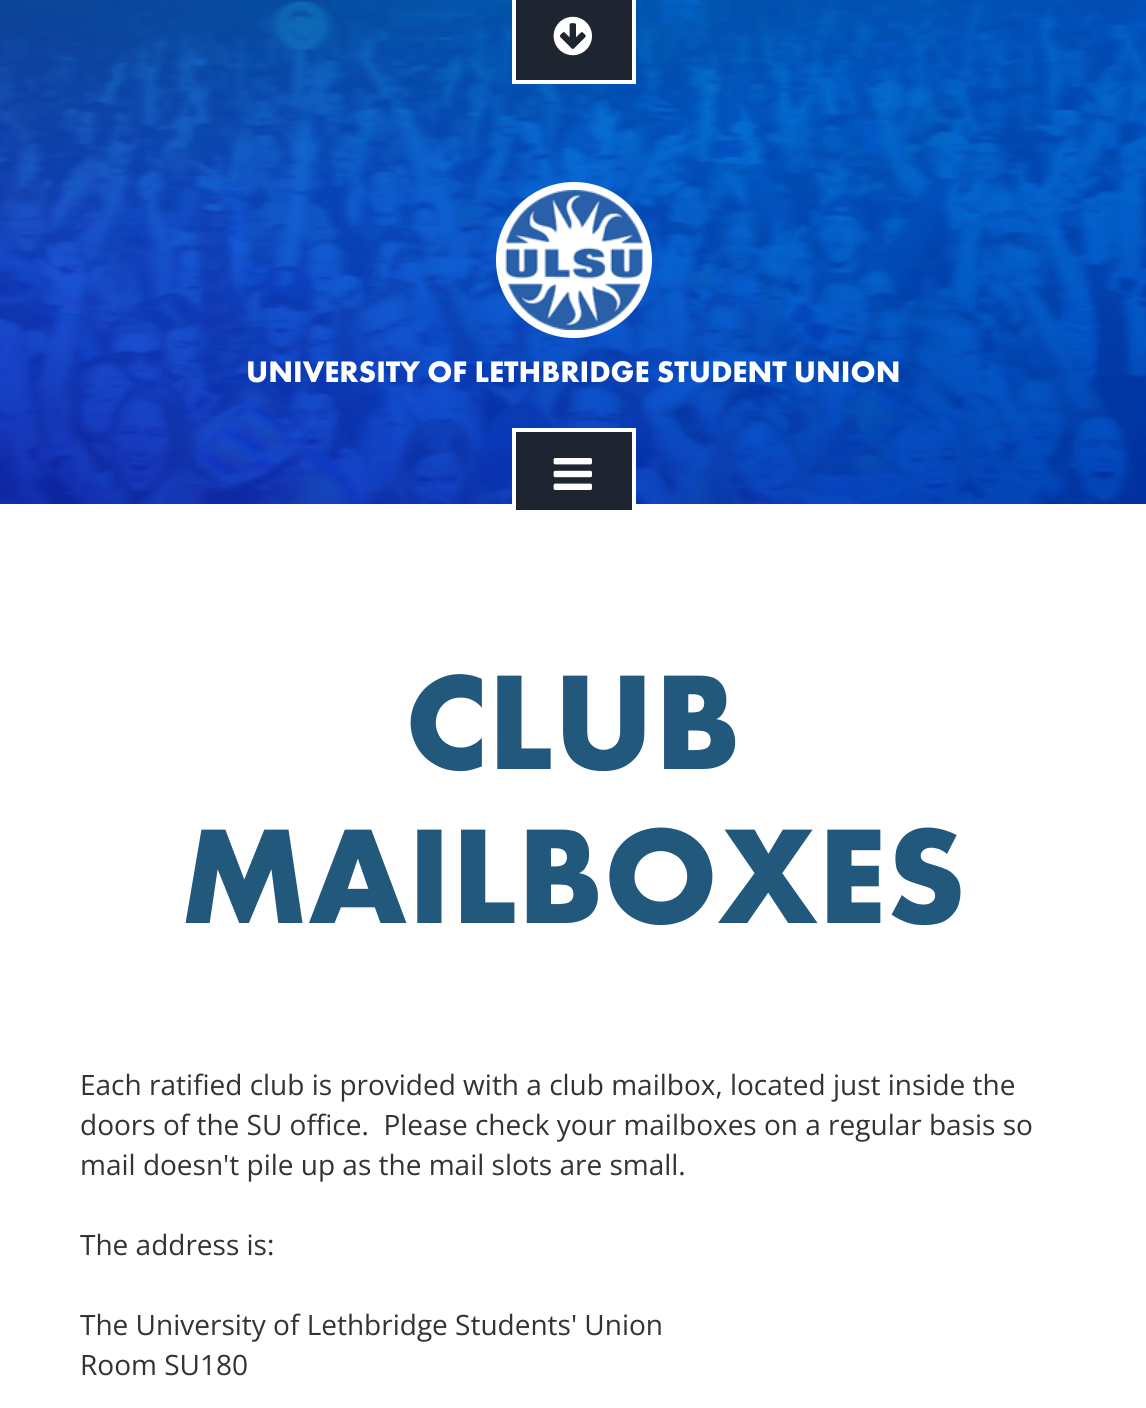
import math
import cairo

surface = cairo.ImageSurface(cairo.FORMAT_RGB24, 1146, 1408)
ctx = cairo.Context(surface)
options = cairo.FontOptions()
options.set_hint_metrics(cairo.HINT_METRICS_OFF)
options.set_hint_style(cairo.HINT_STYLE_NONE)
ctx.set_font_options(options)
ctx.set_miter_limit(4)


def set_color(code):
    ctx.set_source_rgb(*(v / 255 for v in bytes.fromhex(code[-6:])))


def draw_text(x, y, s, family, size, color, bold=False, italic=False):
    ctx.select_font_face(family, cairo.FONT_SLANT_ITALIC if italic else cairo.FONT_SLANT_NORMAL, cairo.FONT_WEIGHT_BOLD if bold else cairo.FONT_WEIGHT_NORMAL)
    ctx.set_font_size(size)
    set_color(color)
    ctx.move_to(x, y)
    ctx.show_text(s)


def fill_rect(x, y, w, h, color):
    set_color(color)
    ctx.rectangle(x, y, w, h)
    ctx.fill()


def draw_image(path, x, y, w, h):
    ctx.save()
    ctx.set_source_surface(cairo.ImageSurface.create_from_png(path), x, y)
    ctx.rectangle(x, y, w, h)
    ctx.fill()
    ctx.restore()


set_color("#ffffff")
ctx.paint()
draw_image("assets/img1.png", 0, 0, 1146, 504)
fill_rect(516, 0, 116, 80, "#1e2531")
fill_rect(632, 0, 4, 84, "#ffffff")
fill_rect(512, 80, 124, 4, "#ffffff")
fill_rect(512, 0, 4, 84, "#ffffff")
draw_image("assets/img2.png", 553, 16, 39, 40)
ctx.arc(574, 260, 78, 0, 2 * math.pi)
ctx.fill()
draw_image("assets/img3.png", 505, 190, 138, 140)
draw_text(246, 382, "UNIVERSITY OF LETHBRIDGE STUDENT UNION", "Futura PT", 30.8, "#ffffff", bold=True)
fill_rect(516, 432, 116, 78, "#1e2531")
fill_rect(512, 428, 124, 4, "#ffffff")
fill_rect(632, 428, 4, 82, "#ffffff")
fill_rect(512, 428, 4, 82, "#ffffff")
draw_image("assets/img4.png", 553, 458, 39, 32)
draw_text(405, 769, "CLUB", "Futura PT", 140, "#22587c", bold=True)
draw_text(180, 923, "MAILBOXES", "Futura PT", 140, "#22587c", bold=True)
draw_text(80, 1095, "Each ratified club is provided with a club mailbox, located just inside the", "Open Sans", 28, "#333333")
draw_text(80, 1135, "doors of the SU office.  Please check your mailboxes on a regular basis so", "Open Sans", 28, "#333333")
draw_text(80, 1175, "mail doesn't pile up as the mail slots are small.", "Open Sans", 28, "#333333")
draw_text(80, 1255, "The address is:", "Open Sans", 28, "#333333")
draw_text(80, 1335, "The University of Lethbridge Students' Union", "Open Sans", 28, "#333333")
draw_text(80, 1375, "Room SU180", "Open Sans", 28, "#333333")
surface.write_to_png("output.png")
